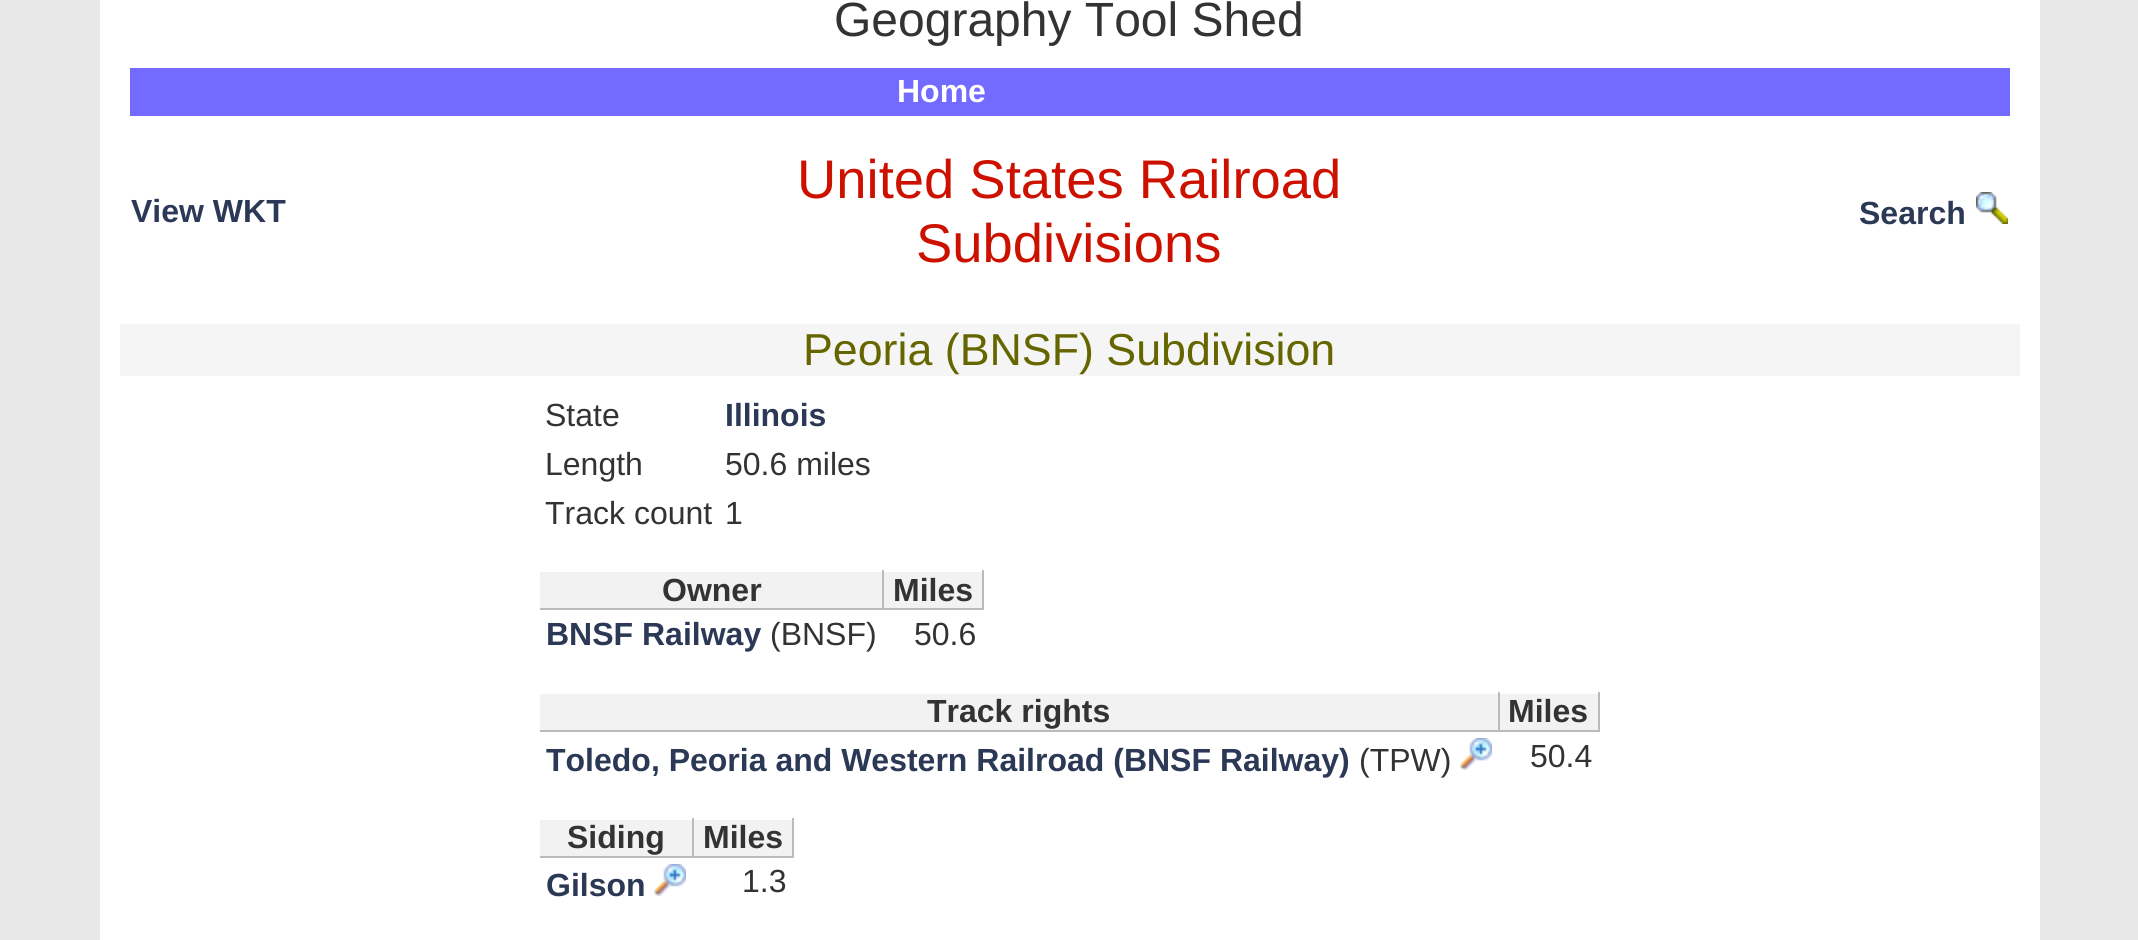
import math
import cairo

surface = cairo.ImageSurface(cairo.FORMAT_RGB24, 2138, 940)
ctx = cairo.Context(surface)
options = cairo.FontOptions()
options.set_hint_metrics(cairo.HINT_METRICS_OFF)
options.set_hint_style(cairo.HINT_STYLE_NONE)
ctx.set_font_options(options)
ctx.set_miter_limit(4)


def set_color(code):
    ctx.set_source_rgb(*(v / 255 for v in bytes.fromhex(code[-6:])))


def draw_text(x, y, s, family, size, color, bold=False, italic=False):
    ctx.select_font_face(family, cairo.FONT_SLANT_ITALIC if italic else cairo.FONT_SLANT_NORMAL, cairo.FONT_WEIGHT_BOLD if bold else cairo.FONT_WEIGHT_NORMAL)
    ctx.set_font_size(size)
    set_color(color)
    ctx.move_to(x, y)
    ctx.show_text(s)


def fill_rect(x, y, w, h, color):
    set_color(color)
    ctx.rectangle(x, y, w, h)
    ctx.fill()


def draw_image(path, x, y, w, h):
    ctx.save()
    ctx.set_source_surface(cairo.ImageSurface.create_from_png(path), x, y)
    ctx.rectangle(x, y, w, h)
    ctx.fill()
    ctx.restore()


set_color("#e8e8e8")
ctx.paint()
fill_rect(100, 0, 1940, 940, "#ffffff")
draw_text(834, 36, "Geography Tool Shed", "Liberation Sans", 48, "#333333")
fill_rect(130, 68, 1880, 48, "#736aff")
draw_text(897, 102, "Home", "Liberation Sans", 32, "#ffffff", bold=True)
draw_text(131, 222, "View WKT", "Liberation Sans", 32, "#2b3856", bold=True)
draw_text(797, 198, "United States Railroad", "Liberation Sans", 54.4, "#cc1100")
draw_text(916, 262, "Subdivisions", "Liberation Sans", 54.4, "#cc1100")
draw_text(1859, 224, "Search", "Liberation Sans", 32, "#2b3856", bold=True)
draw_image("assets/img1.png", 1976, 192, 32, 32)
fill_rect(120, 324, 1900, 52, "#f5f5f5")
draw_text(803, 365, "Peoria (BNSF) Subdivision", "Liberation Sans", 44.75, "#666600")
draw_text(545, 426, "State", "Liberation Sans", 32, "#333333")
draw_text(725, 426, "Illinois", "Liberation Sans", 32, "#2b3856", bold=True)
draw_text(545, 475, "Length", "Liberation Sans", 32, "#333333")
draw_text(725, 475, "50.6 miles", "Liberation Sans", 32, "#333333")
draw_text(545, 524, "Track count", "Liberation Sans", 32, "#333333")
draw_text(725, 524, "1", "Liberation Sans", 32, "#333333")
fill_rect(540, 572, 342, 36, "#f2f2f2")
fill_rect(982, 570, 2, 40, "#bbbbbb")
fill_rect(882, 608, 102, 2, "#bbbbbb")
fill_rect(882, 570, 2, 40, "#bbbbbb")
fill_rect(538, 608, 346, 2, "#bbbbbb")
fill_rect(538, 608, 2, 2, "#ffffff")
draw_text(662, 601, "Owner", "Liberation Sans", 32, "#333333", bold=True)
fill_rect(884, 572, 98, 36, "#f2f2f2")
draw_text(893, 601, "Miles", "Liberation Sans", 32, "#333333", bold=True)
draw_text(546, 645, "BNSF Railway", "Liberation Sans", 32, "#2b3856", bold=True)
draw_text(770, 645, "(BNSF)", "Liberation Sans", 32, "#333333")
draw_text(914, 645, "50.6", "Liberation Sans", 32, "#333333")
fill_rect(540, 694, 958, 36, "#f2f2f2")
fill_rect(1598, 692, 2, 40, "#bbbbbb")
fill_rect(1498, 730, 102, 2, "#bbbbbb")
fill_rect(1498, 692, 2, 40, "#bbbbbb")
fill_rect(538, 730, 962, 2, "#bbbbbb")
fill_rect(538, 730, 2, 2, "#ffffff")
draw_text(927, 722, "Track rights", "Liberation Sans", 32, "#333333", bold=True)
fill_rect(1500, 694, 98, 36, "#f2f2f2")
draw_text(1508, 722, "Miles", "Liberation Sans", 32, "#333333", bold=True)
draw_text(546, 771, "Toledo, Peoria and Western Railroad (BNSF Railway)", "Liberation Sans", 32, "#2b3856", bold=True)
draw_text(1359, 771, "(TPW)", "Liberation Sans", 32, "#333333")
draw_image("assets/img2.png", 1460, 738, 32, 32)
draw_text(1530, 767, "50.4", "Liberation Sans", 32, "#333333")
fill_rect(540, 820, 152, 36, "#f2f2f2")
fill_rect(792, 818, 2, 40, "#bbbbbb")
fill_rect(692, 856, 102, 2, "#bbbbbb")
fill_rect(692, 818, 2, 40, "#bbbbbb")
fill_rect(538, 856, 156, 2, "#bbbbbb")
fill_rect(538, 856, 2, 2, "#ffffff")
draw_text(567, 848, "Siding", "Liberation Sans", 32, "#333333", bold=True)
fill_rect(694, 820, 98, 36, "#f2f2f2")
draw_text(703, 848, "Miles", "Liberation Sans", 32, "#333333", bold=True)
draw_text(546, 896, "Gilson", "Liberation Sans", 32, "#2b3856", bold=True)
draw_image("assets/img2.png", 654, 864, 32, 32)
draw_text(742, 892, "1.3", "Liberation Sans", 32, "#333333")
surface.write_to_png("output.png")
